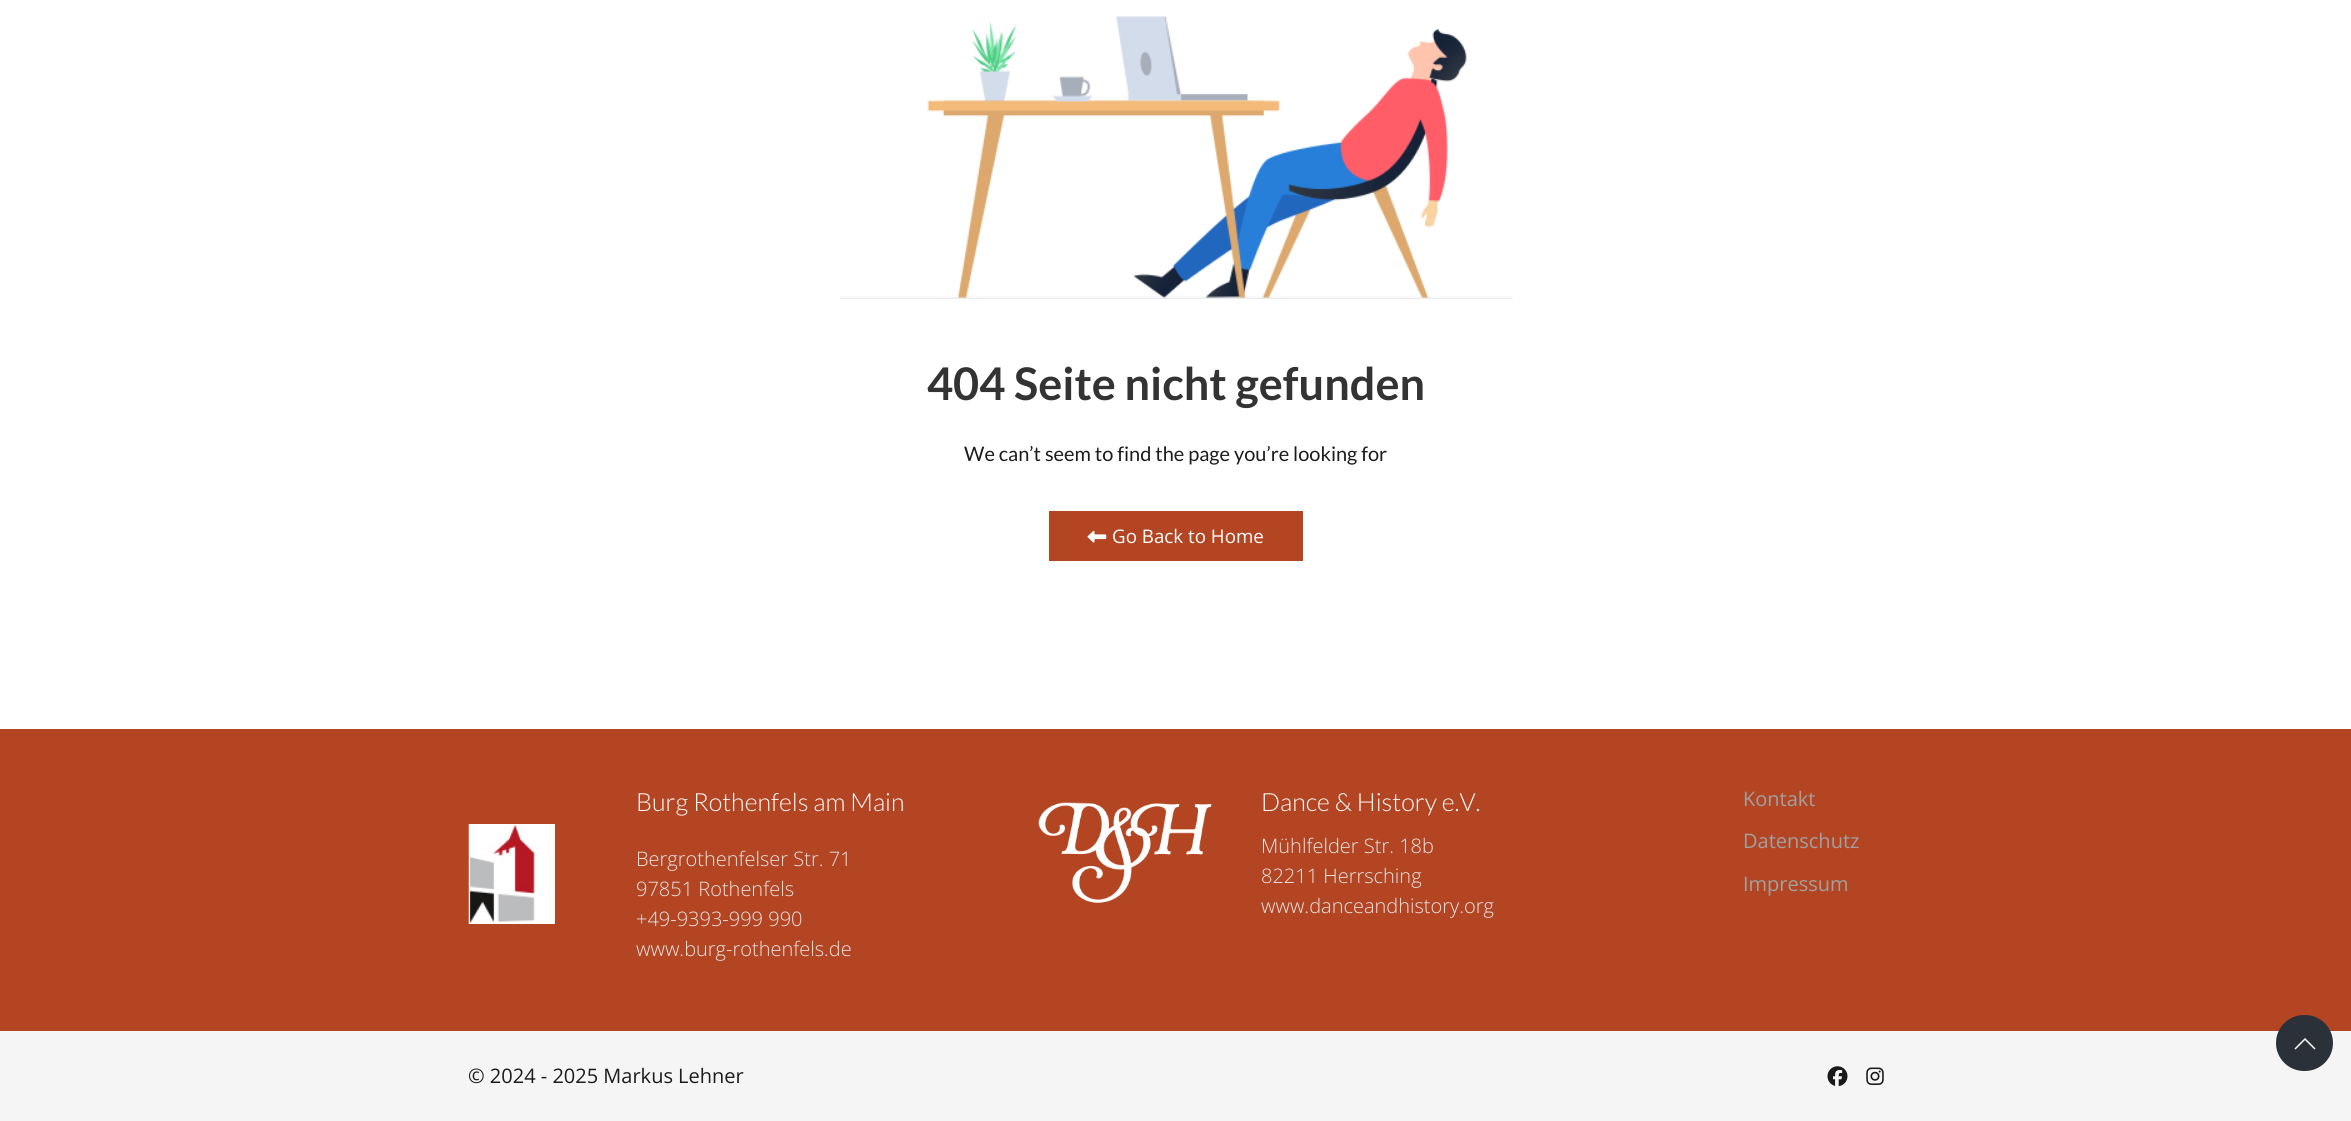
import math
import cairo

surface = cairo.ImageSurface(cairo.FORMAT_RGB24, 2351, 1121)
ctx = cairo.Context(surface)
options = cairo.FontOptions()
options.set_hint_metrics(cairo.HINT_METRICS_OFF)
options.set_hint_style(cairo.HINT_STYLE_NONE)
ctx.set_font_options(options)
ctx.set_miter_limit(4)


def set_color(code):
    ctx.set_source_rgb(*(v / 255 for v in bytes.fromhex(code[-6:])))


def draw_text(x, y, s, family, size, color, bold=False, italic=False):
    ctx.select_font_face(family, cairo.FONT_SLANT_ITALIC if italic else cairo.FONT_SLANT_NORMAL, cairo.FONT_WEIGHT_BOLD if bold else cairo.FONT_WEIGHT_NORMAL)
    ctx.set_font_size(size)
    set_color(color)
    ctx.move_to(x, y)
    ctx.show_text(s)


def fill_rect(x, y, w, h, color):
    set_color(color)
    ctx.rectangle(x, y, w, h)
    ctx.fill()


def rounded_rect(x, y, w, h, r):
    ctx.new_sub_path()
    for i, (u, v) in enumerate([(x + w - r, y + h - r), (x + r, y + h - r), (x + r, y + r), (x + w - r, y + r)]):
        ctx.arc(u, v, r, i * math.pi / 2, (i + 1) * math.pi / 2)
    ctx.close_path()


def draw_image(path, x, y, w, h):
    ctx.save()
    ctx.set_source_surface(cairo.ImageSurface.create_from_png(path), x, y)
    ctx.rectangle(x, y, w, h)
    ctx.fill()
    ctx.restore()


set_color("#ffffff")
ctx.paint()
draw_image("assets/img1.png", 840, 16, 673, 283)
draw_text(927, 400, "404 Seite nicht gefunden", "Lato", 45, "#333333", bold=True)
draw_text(964, 461, "We can’t seem to find the page you’re looking for", "Lato", 20, "#1c1c1c")
fill_rect(1049, 511, 254, 50, "#b44523")
draw_image("assets/img2.png", 1087, 530, 20, 13)
draw_text(1112, 543, "Go Back to Home", "Open Sans", 18.75, "#ffffff")
fill_rect(0, 729, 2351, 302, "#b44523")
draw_image("assets/img3.png", 468, 824, 87, 100)
draw_text(636, 811, "Burg Rothenfels am Main", "Lato Light", 25, "#ffffff")
draw_text(636, 866, "Bergrothenfelser Str. 71", "Open Sans Light", 20, "#e6e6e6")
draw_text(636, 896, "97851 Rothenfels", "Open Sans Light", 20, "#e6e6e6")
draw_text(636, 926, "+49-9393-999 990", "Open Sans Light", 20, "#e6e6e6")
draw_text(636, 956, "www.burg-rothenfels.de", "Open Sans Light", 20, "#e6e6e6")
draw_image("assets/img4.png", 1038, 802, 174, 101)
draw_text(1261, 811, "Dance & History e.V.", "Lato Light", 25, "#ffffff")
draw_text(1261, 853, "Mühlfelder Str. 18b", "Open Sans Light", 20, "#e6e6e6")
draw_text(1261, 883, "82211 Herrsching", "Open Sans Light", 20, "#e6e6e6")
draw_text(1261, 913, "www.danceandhistory.org", "Open Sans Light", 20, "#e6e6e6")
draw_text(1743, 806, "Kontakt", "Open Sans", 20, "#a0a0a0")
draw_text(1743, 848, "Datenschutz", "Open Sans", 20, "#a0a0a0")
draw_text(1743, 891, "Impressum", "Open Sans", 20, "#a0a0a0")
fill_rect(0, 1031, 2351, 90, "#f5f5f5")
set_color("#2b3138")
rounded_rect(2276, 1015, 57, 56, 28)
ctx.fill()
ctx.new_path()
ctx.move_to(2295, 1049)
ctx.line_to(2305, 1039)
ctx.line_to(2315, 1049)
set_color("#ffffff")
ctx.set_line_width(1.5)
ctx.stroke()
draw_text(468, 1083, "© 2024 - 2025 Markus Lehner", "Open Sans", 20, "#1c1c1c")
draw_image("assets/img5.png", 1827, 1066, 21, 21)
draw_image("assets/img6.png", 1866, 1067, 18, 18)
surface.write_to_png("output.png")
